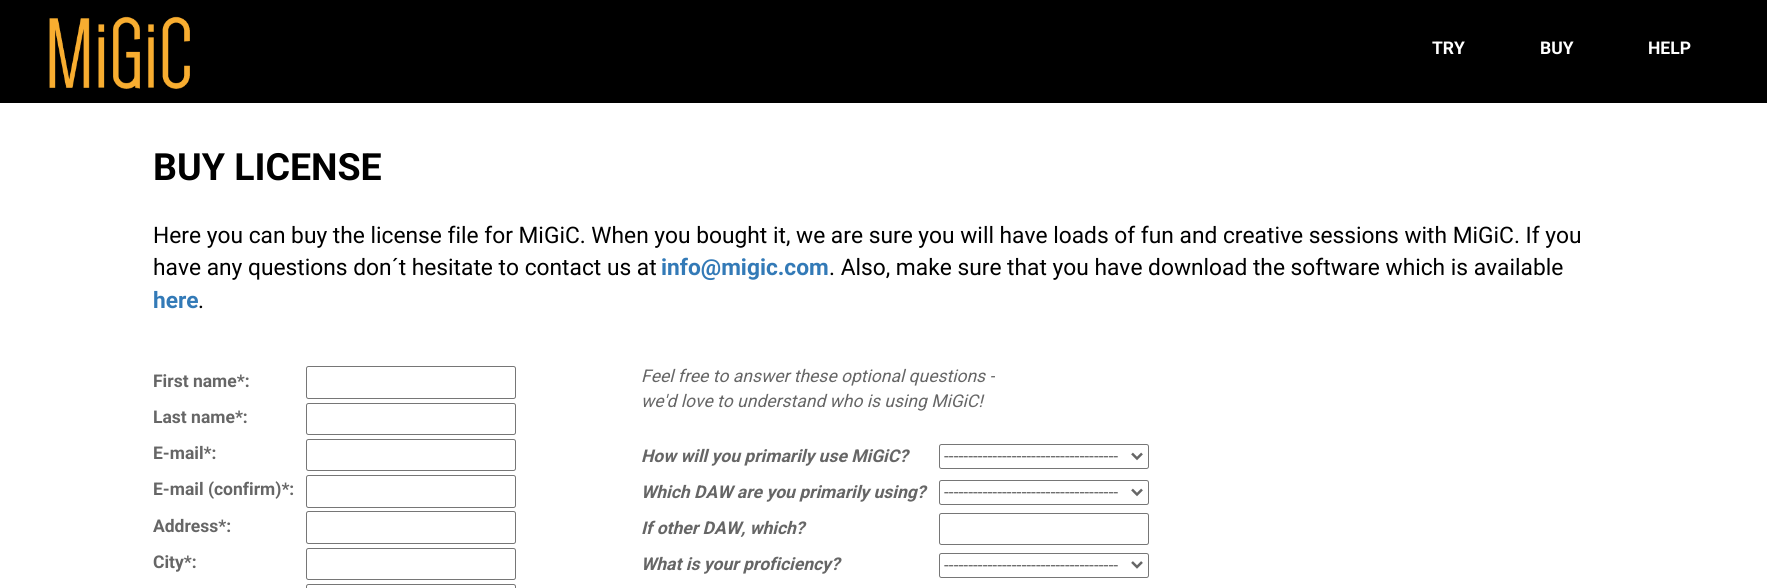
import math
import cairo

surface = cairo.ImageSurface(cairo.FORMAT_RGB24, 1767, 588)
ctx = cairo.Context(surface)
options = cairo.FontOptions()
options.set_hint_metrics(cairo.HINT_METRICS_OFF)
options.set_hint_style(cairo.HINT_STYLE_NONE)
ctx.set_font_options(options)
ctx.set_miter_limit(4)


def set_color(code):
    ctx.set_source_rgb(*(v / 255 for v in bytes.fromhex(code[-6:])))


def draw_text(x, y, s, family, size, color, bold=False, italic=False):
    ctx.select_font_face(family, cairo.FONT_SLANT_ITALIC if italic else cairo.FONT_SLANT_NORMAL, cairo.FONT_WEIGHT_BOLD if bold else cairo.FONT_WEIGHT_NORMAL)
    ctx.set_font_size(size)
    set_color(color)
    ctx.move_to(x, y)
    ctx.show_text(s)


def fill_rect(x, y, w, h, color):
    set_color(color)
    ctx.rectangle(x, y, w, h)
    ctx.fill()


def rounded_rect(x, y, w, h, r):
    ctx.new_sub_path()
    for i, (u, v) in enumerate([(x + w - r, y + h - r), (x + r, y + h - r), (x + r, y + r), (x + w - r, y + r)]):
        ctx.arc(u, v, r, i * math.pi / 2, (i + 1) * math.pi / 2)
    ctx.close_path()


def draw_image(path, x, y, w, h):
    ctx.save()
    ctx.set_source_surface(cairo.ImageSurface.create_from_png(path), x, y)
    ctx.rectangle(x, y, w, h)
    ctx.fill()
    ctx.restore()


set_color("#ffffff")
ctx.paint()
fill_rect(0, 0, 1767, 103, "#000000")
draw_image("assets/img1.png", 49, 16, 141, 73)
draw_text(1432, 54, "TRY", "Roboto", 17.5, "#ffffff", bold=True)
draw_text(1540, 54, "BUY", "Roboto", 17.5, "#ffffff", bold=True)
draw_text(1648, 54, "HELP", "Roboto", 17.5, "#ffffff", bold=True)
draw_text(153, 180, "BUY LICENSE", "Roboto", 37.5, "#000000", bold=True)
draw_text(153, 243, "Here you can buy the license file for MiGiC. When you bought it, we are sure you will have loads of fun and creative sessions with MiGiC. If you", "Roboto", 22.75, "#000000")
draw_text(153, 275, "have any questions don´t hesitate to contact us at", "Roboto", 22.75, "#000000")
draw_text(661, 275, "info@migic.com", "Roboto", 22.75, "#337ab7", bold=True)
draw_text(829, 275, ". Also, make sure that you have download the software which is available", "Roboto", 22.75, "#000000")
draw_text(153, 308, "here", "Roboto", 22.75, "#337ab7", bold=True)
draw_text(198, 308, ".", "Roboto", 22.75, "#000000")
draw_text(153, 387, "First name*:", "Roboto", 17.5, "#666666", bold=True)
rounded_rect(306.5, 366.5, 209, 32, 2)
set_color("#767676")
ctx.set_line_width(1)
ctx.stroke()
draw_text(153, 423, "Last name*:", "Roboto", 17.5, "#666666", bold=True)
rounded_rect(306.5, 403.5, 209, 31, 2)
set_color("#767676")
ctx.stroke()
draw_text(153, 459, "E-mail*:", "Roboto", 17.5, "#666666", bold=True)
rounded_rect(306.5, 439.5, 209, 31, 2)
set_color("#767676")
ctx.stroke()
draw_text(153, 495, "E-mail (confirm)*:", "Roboto", 17.5, "#666666", bold=True)
rounded_rect(306.5, 475.5, 209, 32, 2)
set_color("#767676")
ctx.stroke()
draw_text(153, 532, "Address*:", "Roboto", 17.5, "#666666", bold=True)
rounded_rect(306.5, 511.5, 209, 32, 2)
set_color("#767676")
ctx.stroke()
draw_text(153, 568, "City*:", "Roboto", 17.5, "#666666", bold=True)
rounded_rect(306.5, 548.5, 209, 31, 2)
set_color("#767676")
ctx.stroke()
rounded_rect(306.5, 584.5, 209, 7, 2)
ctx.stroke()
draw_text(641, 382, "Feel free to answer these optional questions -", "Roboto", 17.5, "#666666", italic=True)
draw_text(641, 407, "we'd love to understand who is using MiGiC!", "Roboto", 17.5, "#666666", italic=True)
draw_text(641, 462, "How will you primarily use MiGiC?", "Roboto", 17.5, "#666666", bold=True, italic=True)
rounded_rect(939.5, 444.5, 209, 24, 2)
set_color("#767676")
ctx.stroke()
ctx.new_path()
ctx.move_to(1132, 453.5)
ctx.line_to(1137, 458.5)
ctx.line_to(1142, 453.5)
set_color("#666666")
ctx.set_line_width(2.5)
ctx.stroke()
draw_text(944, 462, "------------------------------------", "Roboto", 17.5, "#666666")
draw_text(641, 498, "Which DAW are you primarily using?", "Roboto", 17.5, "#666666", bold=True, italic=True)
rounded_rect(939.5, 480.5, 209, 24, 2)
set_color("#767676")
ctx.set_line_width(1)
ctx.stroke()
ctx.new_path()
ctx.move_to(1132, 489.5)
ctx.line_to(1137, 494.5)
ctx.line_to(1142, 489.5)
set_color("#666666")
ctx.set_line_width(2.5)
ctx.stroke()
draw_text(944, 498, "------------------------------------", "Roboto", 17.5, "#666666")
draw_text(641, 534, "If other DAW, which?", "Roboto", 17.5, "#666666", bold=True, italic=True)
rounded_rect(939.5, 513.5, 209, 31, 2)
set_color("#767676")
ctx.set_line_width(1)
ctx.stroke()
draw_text(641, 570, "What is your proficiency?", "Roboto", 17.5, "#666666", bold=True, italic=True)
rounded_rect(939.5, 553.5, 209, 24, 2)
set_color("#767676")
ctx.stroke()
ctx.new_path()
ctx.move_to(1132, 562)
ctx.line_to(1137, 567)
ctx.line_to(1142, 562)
set_color("#666666")
ctx.set_line_width(2.5)
ctx.stroke()
draw_text(944, 571, "------------------------------------", "Roboto", 17.5, "#666666")
surface.write_to_png("output.png")
